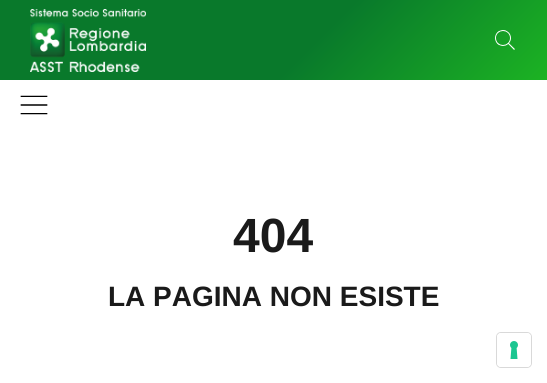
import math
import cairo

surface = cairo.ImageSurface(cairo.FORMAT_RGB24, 547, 383)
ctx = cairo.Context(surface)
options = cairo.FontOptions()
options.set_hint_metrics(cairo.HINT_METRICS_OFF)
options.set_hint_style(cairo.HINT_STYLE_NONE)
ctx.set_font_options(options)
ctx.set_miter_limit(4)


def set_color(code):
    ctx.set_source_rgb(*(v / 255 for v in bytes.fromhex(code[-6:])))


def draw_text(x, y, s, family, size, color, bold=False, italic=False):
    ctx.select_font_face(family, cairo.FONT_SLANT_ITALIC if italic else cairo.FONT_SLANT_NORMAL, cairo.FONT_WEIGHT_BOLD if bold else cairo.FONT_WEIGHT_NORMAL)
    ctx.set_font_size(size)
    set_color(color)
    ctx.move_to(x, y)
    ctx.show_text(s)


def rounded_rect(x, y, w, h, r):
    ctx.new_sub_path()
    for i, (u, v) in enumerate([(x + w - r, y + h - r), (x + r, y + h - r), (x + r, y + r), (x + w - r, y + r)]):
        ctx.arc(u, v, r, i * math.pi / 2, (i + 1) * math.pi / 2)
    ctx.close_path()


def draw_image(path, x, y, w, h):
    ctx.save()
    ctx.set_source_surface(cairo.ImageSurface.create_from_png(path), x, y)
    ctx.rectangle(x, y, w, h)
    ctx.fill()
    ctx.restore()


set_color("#ffffff")
ctx.paint()
gradient = cairo.LinearGradient(117, -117, 430, 197)
gradient.add_color_stop_rgba(0.57, 0.035, 0.475, 0.169, 1)
gradient.add_color_stop_rgba(1, 0.11, 0.702, 0.137, 1)
ctx.set_source(gradient)
ctx.rectangle(0, 0, 547, 80)
ctx.fill()
draw_image("assets/img1.png", 30, 9, 116, 63)
draw_image("assets/img2.png", 495, 30, 20, 20)
draw_image("assets/img3.png", 20, 95, 28, 20)
draw_text(233, 252, "404", "Liberation Sans", 48, "#1a1a1a", bold=True)
draw_text(108, 306, "LA PAGINA NON ESISTE", "Liberation Sans", 28, "#1a1a1a", bold=True)
rounded_rect(496.5, 332.5, 35, 35, 4.5)
set_color("#d9d9d9")
ctx.set_line_width(1)
ctx.stroke()
set_color("#ffffff")
rounded_rect(497, 333, 34, 34, 4)
ctx.fill()
draw_image("assets/img4.png", 510, 341, 8, 18)
surface.write_to_png("output.png")
